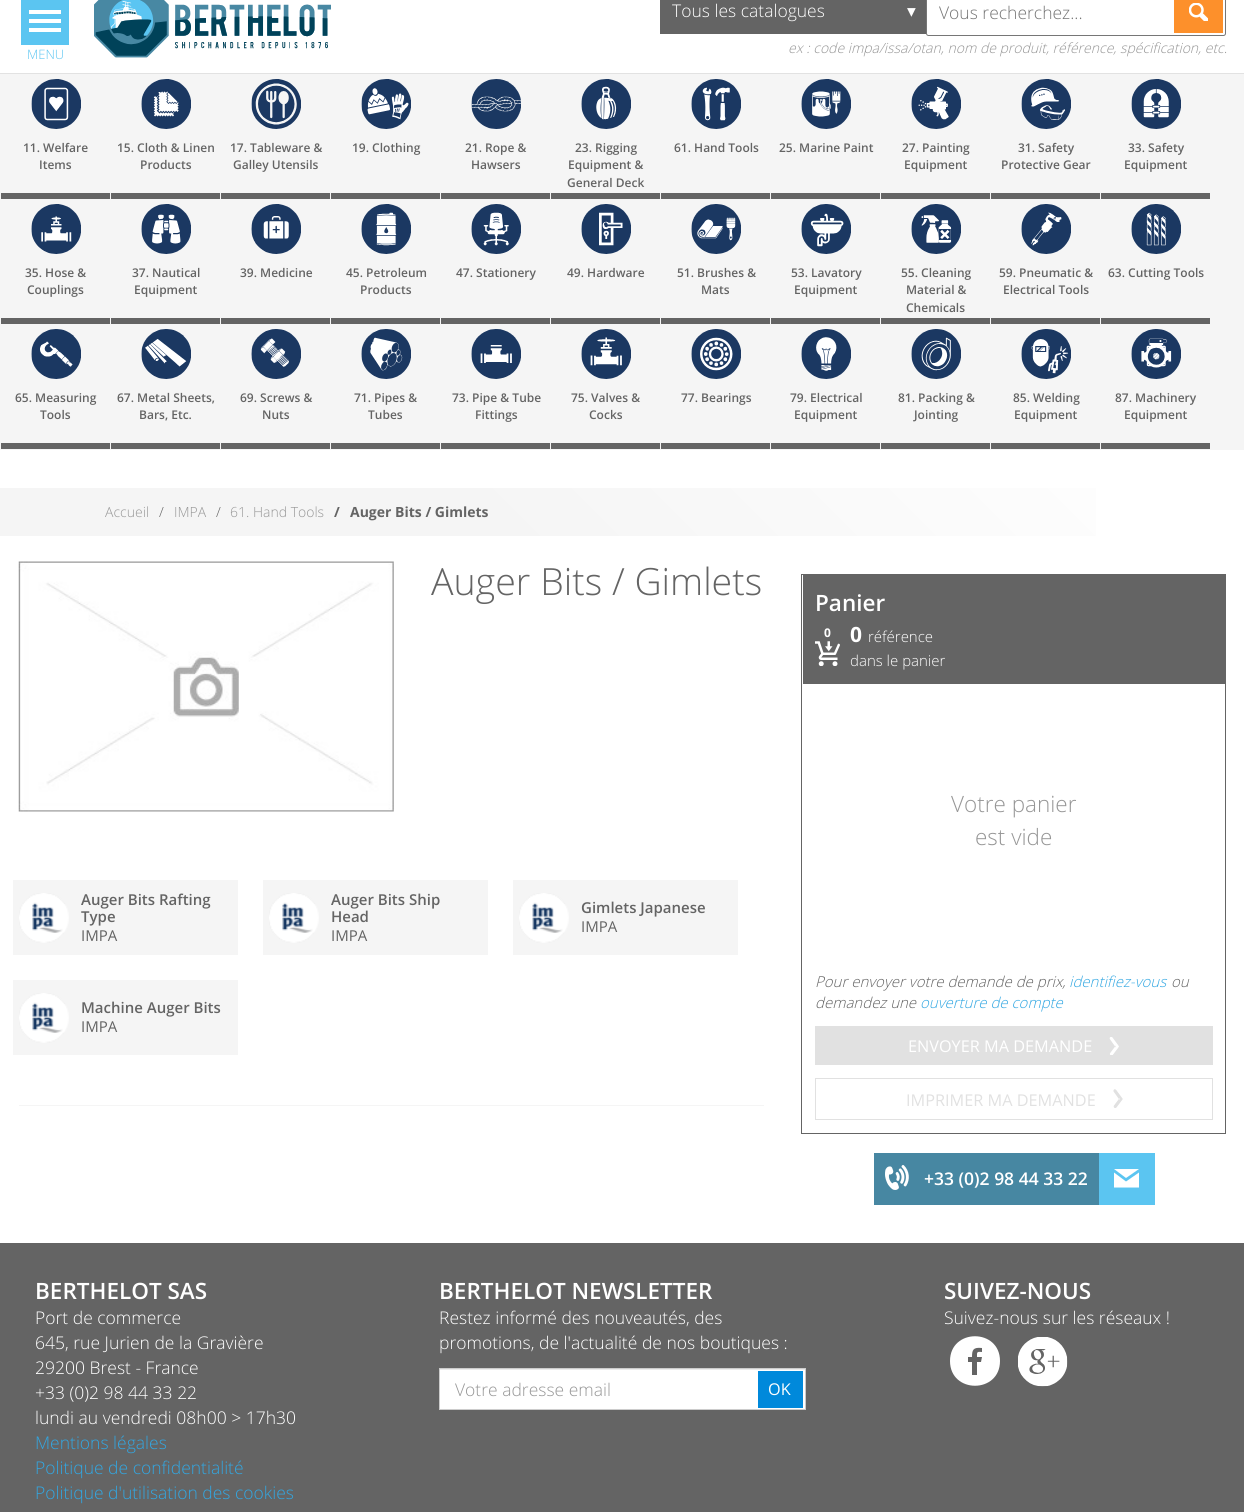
import math
import cairo

surface = cairo.ImageSurface(cairo.FORMAT_RGB24, 1244, 1512)
ctx = cairo.Context(surface)
options = cairo.FontOptions()
options.set_hint_metrics(cairo.HINT_METRICS_OFF)
options.set_hint_style(cairo.HINT_STYLE_NONE)
ctx.set_font_options(options)
ctx.set_miter_limit(4)


def set_color(code):
    ctx.set_source_rgb(*(v / 255 for v in bytes.fromhex(code[-6:])))


def draw_text(x, y, s, family, size, color, bold=False, italic=False):
    ctx.select_font_face(family, cairo.FONT_SLANT_ITALIC if italic else cairo.FONT_SLANT_NORMAL, cairo.FONT_WEIGHT_BOLD if bold else cairo.FONT_WEIGHT_NORMAL)
    ctx.set_font_size(size)
    set_color(color)
    ctx.move_to(x, y)
    ctx.show_text(s)


def fill_rect(x, y, w, h, color):
    set_color(color)
    ctx.rectangle(x, y, w, h)
    ctx.fill()


def rounded_rect(x, y, w, h, r):
    ctx.new_sub_path()
    for i, (u, v) in enumerate([(x + w - r, y + h - r), (x + r, y + h - r), (x + r, y + r), (x + w - r, y + r)]):
        ctx.arc(u, v, r, i * math.pi / 2, (i + 1) * math.pi / 2)
    ctx.close_path()


def draw_image(path, x, y, w, h):
    ctx.save()
    ctx.set_source_surface(cairo.ImageSurface.create_from_png(path), x, y)
    ctx.rectangle(x, y, w, h)
    ctx.fill()
    ctx.restore()


set_color("#ffffff")
ctx.paint()
fill_rect(0, 73, 1244, 1, "#e2e2e2")
fill_rect(21, 0, 48, 45, "#5bc5f1")
fill_rect(29, 10, 32, 4, "#ffffff")
fill_rect(29, 19, 32, 4, "#ffffff")
fill_rect(29, 28, 32, 4, "#ffffff")
draw_text(27, 59, "MENU", "Open Sans Light", 13, "#5bc5f1")
draw_image("assets/img1.png", 94, 0, 237, 58)
fill_rect(660, 0, 266, 34, "#646464")
draw_text(672, 17, "Tous les catalogues", "Open Sans Light", 17.5, "#ffffff")
draw_text(907, 17, "▾", "DejaVu Sans", 17.5, "#ffffff")
rounded_rect(926.5, -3.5, 299, 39, 2)
set_color("#767676")
ctx.set_line_width(1)
ctx.stroke()
draw_text(939, 19, "Vous recherchez...", "Open Sans Light", 17.5, "#757575")
fill_rect(1174, 0, 49, 33, "#fd902b")
draw_image("assets/img2.png", 1189, 3, 19, 18)
draw_text(788, 53, "ex : code impa/issa/otan, nom de produit, référence, spécification, etc.", "Open Sans Light", 14, "#969696", italic=True)
fill_rect(0, 74, 1244, 376, "#f5f5f5")
fill_rect(1, 193, 109, 6, "#646464")
draw_image("assets/img3.png", 31, 79, 50, 50)
draw_text(23, 152, "11. Welfare", "Open Sans SemiBold", 12, "#646464")
draw_text(39, 169, "Items", "Open Sans SemiBold", 12, "#646464")
fill_rect(111, 193, 109, 6, "#646464")
draw_image("assets/img4.png", 141, 79, 50, 50)
draw_text(117, 152, "15. Cloth & Linen", "Open Sans SemiBold", 12, "#646464")
draw_text(140, 169, "Products", "Open Sans SemiBold", 12, "#646464")
fill_rect(221, 193, 109, 6, "#646464")
draw_image("assets/img5.png", 251, 79, 50, 50)
draw_text(230, 152, "17. Tableware &", "Open Sans SemiBold", 12, "#646464")
draw_text(233, 169, "Galley Utensils", "Open Sans SemiBold", 12, "#646464")
fill_rect(331, 193, 109, 6, "#646464")
draw_image("assets/img6.png", 361, 79, 50, 50)
draw_text(352, 152, "19. Clothing", "Open Sans SemiBold", 12, "#646464")
fill_rect(441, 193, 109, 6, "#646464")
draw_image("assets/img7.png", 471, 79, 50, 50)
draw_text(465, 152, "21. Rope &", "Open Sans SemiBold", 12, "#646464")
draw_text(471, 169, "Hawsers", "Open Sans SemiBold", 12, "#646464")
fill_rect(551, 193, 109, 6, "#646464")
draw_image("assets/img8.png", 581, 79, 50, 50)
draw_text(575, 152, "23. Rigging", "Open Sans SemiBold", 12, "#646464")
draw_text(568, 169, "Equipment &", "Open Sans SemiBold", 12, "#646464")
draw_text(567, 187, "General Deck", "Open Sans SemiBold", 12, "#646464")
fill_rect(661, 193, 109, 6, "#646464")
draw_image("assets/img9.png", 691, 79, 50, 50)
draw_text(674, 152, "61. Hand Tools", "Open Sans SemiBold", 12, "#646464")
fill_rect(771, 193, 109, 6, "#646464")
draw_image("assets/img10.png", 801, 79, 50, 50)
draw_text(779, 152, "25. Marine Paint", "Open Sans SemiBold", 12, "#646464")
fill_rect(881, 193, 109, 6, "#646464")
draw_image("assets/img11.png", 911, 79, 50, 50)
draw_text(902, 152, "27. Painting", "Open Sans SemiBold", 12, "#646464")
draw_text(904, 169, "Equipment", "Open Sans SemiBold", 12, "#646464")
fill_rect(991, 193, 109, 6, "#646464")
draw_image("assets/img12.png", 1021, 79, 50, 50)
draw_text(1018, 152, "31. Safety", "Open Sans SemiBold", 12, "#646464")
draw_text(1001, 169, "Protective Gear", "Open Sans SemiBold", 12, "#646464")
fill_rect(1101, 193, 109, 6, "#646464")
draw_image("assets/img13.png", 1131, 79, 50, 50)
draw_text(1128, 152, "33. Safety", "Open Sans SemiBold", 12, "#646464")
draw_text(1124, 169, "Equipment", "Open Sans SemiBold", 12, "#646464")
fill_rect(1, 318, 109, 6, "#646464")
draw_image("assets/img14.png", 31, 204, 50, 50)
draw_text(25, 277, "35. Hose &", "Open Sans SemiBold", 12, "#646464")
draw_text(27, 294, "Couplings", "Open Sans SemiBold", 12, "#646464")
fill_rect(111, 318, 109, 6, "#646464")
draw_image("assets/img15.png", 141, 204, 50, 50)
draw_text(132, 277, "37. Nautical", "Open Sans SemiBold", 12, "#646464")
draw_text(134, 294, "Equipment", "Open Sans SemiBold", 12, "#646464")
fill_rect(221, 318, 109, 6, "#646464")
draw_image("assets/img16.png", 251, 204, 50, 50)
draw_text(240, 277, "39. Medicine", "Open Sans SemiBold", 12, "#646464")
fill_rect(331, 318, 109, 6, "#646464")
draw_image("assets/img17.png", 361, 204, 50, 50)
draw_text(346, 277, "45. Petroleum", "Open Sans SemiBold", 12, "#646464")
draw_text(360, 294, "Products", "Open Sans SemiBold", 12, "#646464")
fill_rect(441, 318, 109, 6, "#646464")
draw_image("assets/img18.png", 471, 204, 50, 50)
draw_text(456, 277, "47. Stationery", "Open Sans SemiBold", 12, "#646464")
fill_rect(551, 318, 109, 6, "#646464")
draw_image("assets/img19.png", 581, 204, 50, 50)
draw_text(567, 277, "49. Hardware", "Open Sans SemiBold", 12, "#646464")
fill_rect(661, 318, 109, 6, "#646464")
draw_image("assets/img20.png", 691, 204, 50, 50)
draw_text(677, 277, "51. Brushes &", "Open Sans SemiBold", 12, "#646464")
draw_text(701, 294, "Mats", "Open Sans SemiBold", 12, "#646464")
fill_rect(771, 318, 109, 6, "#646464")
draw_image("assets/img21.png", 801, 204, 50, 50)
draw_text(791, 277, "53. Lavatory", "Open Sans SemiBold", 12, "#646464")
draw_text(794, 294, "Equipment", "Open Sans SemiBold", 12, "#646464")
fill_rect(881, 318, 109, 6, "#646464")
draw_image("assets/img22.png", 911, 204, 50, 50)
draw_text(901, 277, "55. Cleaning", "Open Sans SemiBold", 12, "#646464")
draw_text(906, 294, "Material &", "Open Sans SemiBold", 12, "#646464")
draw_text(906, 312, "Chemicals", "Open Sans SemiBold", 12, "#646464")
fill_rect(991, 318, 109, 6, "#646464")
draw_image("assets/img23.png", 1021, 204, 50, 50)
draw_text(999, 277, "59. Pneumatic &", "Open Sans SemiBold", 12, "#646464")
draw_text(1003, 294, "Electrical Tools", "Open Sans SemiBold", 12, "#646464")
fill_rect(1101, 318, 109, 6, "#646464")
draw_image("assets/img24.png", 1131, 204, 50, 50)
draw_text(1108, 277, "63. Cutting Tools", "Open Sans SemiBold", 12, "#646464")
fill_rect(1, 443, 109, 6, "#646464")
draw_image("assets/img25.png", 31, 329, 50, 50)
draw_text(15, 402, "65. Measuring", "Open Sans SemiBold", 12, "#646464")
draw_text(40, 419, "Tools", "Open Sans SemiBold", 12, "#646464")
fill_rect(111, 443, 109, 6, "#646464")
draw_image("assets/img26.png", 141, 329, 50, 50)
draw_text(117, 402, "67. Metal Sheets,", "Open Sans SemiBold", 12, "#646464")
draw_text(139, 419, "Bars, Etc.", "Open Sans SemiBold", 12, "#646464")
fill_rect(221, 443, 109, 6, "#646464")
draw_image("assets/img27.png", 251, 329, 50, 50)
draw_text(240, 402, "69. Screws &", "Open Sans SemiBold", 12, "#646464")
draw_text(262, 419, "Nuts", "Open Sans SemiBold", 12, "#646464")
fill_rect(331, 443, 109, 6, "#646464")
draw_image("assets/img28.png", 361, 329, 50, 50)
draw_text(354, 402, "71. Pipes &", "Open Sans SemiBold", 12, "#646464")
draw_text(368, 419, "Tubes", "Open Sans SemiBold", 12, "#646464")
fill_rect(441, 443, 109, 6, "#646464")
draw_image("assets/img29.png", 471, 329, 50, 50)
draw_text(452, 402, "73. Pipe & Tube", "Open Sans SemiBold", 12, "#646464")
draw_text(475, 419, "Fittings", "Open Sans SemiBold", 12, "#646464")
fill_rect(551, 443, 109, 6, "#646464")
draw_image("assets/img30.png", 581, 329, 50, 50)
draw_text(571, 402, "75. Valves &", "Open Sans SemiBold", 12, "#646464")
draw_text(589, 419, "Cocks", "Open Sans SemiBold", 12, "#646464")
fill_rect(661, 443, 109, 6, "#646464")
draw_image("assets/img31.png", 691, 329, 50, 50)
draw_text(681, 402, "77. Bearings", "Open Sans SemiBold", 12, "#646464")
fill_rect(771, 443, 109, 6, "#646464")
draw_image("assets/img32.png", 801, 329, 50, 50)
draw_text(790, 402, "79. Electrical", "Open Sans SemiBold", 12, "#646464")
draw_text(794, 419, "Equipment", "Open Sans SemiBold", 12, "#646464")
fill_rect(881, 443, 109, 6, "#646464")
draw_image("assets/img33.png", 911, 329, 50, 50)
draw_text(898, 402, "81. Packing &", "Open Sans SemiBold", 12, "#646464")
draw_text(914, 419, "Jointing", "Open Sans SemiBold", 12, "#646464")
fill_rect(991, 443, 109, 6, "#646464")
draw_image("assets/img34.png", 1021, 329, 50, 50)
draw_text(1013, 402, "85. Welding", "Open Sans SemiBold", 12, "#646464")
draw_text(1014, 419, "Equipment", "Open Sans SemiBold", 12, "#646464")
fill_rect(1101, 443, 109, 6, "#646464")
draw_image("assets/img35.png", 1131, 329, 50, 50)
draw_text(1115, 402, "87. Machinery", "Open Sans SemiBold", 12, "#646464")
draw_text(1124, 419, "Equipment", "Open Sans SemiBold", 12, "#646464")
gradient = cairo.LinearGradient(299, 835, 946, 188)
gradient.add_color_stop_rgba(0.39, 0.961, 0.961, 0.961, 1)
gradient.add_color_stop_rgba(1, 1, 1, 1, 1)
ctx.set_source(gradient)
ctx.rectangle(0, 488, 1096, 48)
ctx.fill()
draw_text(105, 517, "Accueil", "Open Sans Light", 14, "#969696")
draw_text(159, 517, "/", "Open Sans Light", 14, "#646464")
draw_text(174, 517, "IMPA", "Open Sans Light", 14, "#969696")
draw_text(216, 517, "/", "Open Sans Light", 14, "#646464")
draw_text(230, 517, "61. Hand Tools", "Open Sans Light", 14, "#969696")
draw_text(334, 517, "/", "Open Sans", 14, "#646464", bold=True)
draw_text(350, 517, "Auger Bits / Gimlets", "Open Sans", 14, "#646464", bold=True)
draw_image("assets/img36.png", 18, 561, 376, 251)
draw_text(431, 595, "Auger Bits / Gimlets", "Open Sans Light", 37.5, "#646464")
fill_rect(19, 1105, 745, 1, "#f5f5f5")
fill_rect(13, 880, 225, 75, "#f5f5f5")
draw_image("assets/img37.png", 19, 893, 50, 50)
draw_text(81, 905, "Auger Bits Rafting", "Open Sans SemiBold", 15, "#646464")
draw_text(81, 922, "Type", "Open Sans SemiBold", 15, "#646464")
draw_text(81, 941, "IMPA", "Open Sans", 15, "#646464")
fill_rect(263, 880, 225, 75, "#f5f5f5")
draw_image("assets/img37.png", 269, 893, 50, 50)
draw_text(331, 905, "Auger Bits Ship", "Open Sans SemiBold", 15, "#646464")
draw_text(331, 922, "Head", "Open Sans SemiBold", 15, "#646464")
draw_text(331, 941, "IMPA", "Open Sans", 15, "#646464")
fill_rect(513, 880, 225, 75, "#f5f5f5")
draw_image("assets/img38.png", 519, 893, 50, 50)
draw_text(581, 913, "Gimlets Japanese", "Open Sans SemiBold", 15, "#646464")
draw_text(581, 932, "IMPA", "Open Sans", 15, "#646464")
fill_rect(13, 980, 225, 75, "#f5f5f5")
draw_image("assets/img37.png", 19, 993, 50, 50)
draw_text(81, 1013, "Machine Auger Bits", "Open Sans SemiBold", 15, "#646464")
draw_text(81, 1032, "IMPA", "Open Sans", 15, "#646464")
ctx.rectangle(801.5, 574.5, 424, 559)
ctx.stroke()
fill_rect(803, 575, 422, 109, "#646464")
draw_text(815, 611, "Panier", "Open Sans SemiBold", 22.5, "#ffffff")
draw_text(824, 637, "0", "Open Sans", 12, "#ffffff", bold=True)
draw_image("assets/img39.png", 815, 641, 25, 25)
draw_text(850, 642, "0", "Open Sans", 21, "#ffffff", bold=True)
draw_text(868, 642, "référence", "Open Sans Light", 15, "#ffffff")
draw_text(850, 666, "dans le panier", "Open Sans Light", 15, "#ffffff")
draw_text(951, 812, "Votre panier", "Open Sans Light", 22.5, "#969696")
draw_text(975, 845, "est vide", "Open Sans Light", 22.5, "#969696")
draw_text(815, 987, "Pour envoyer votre demande de prix,", "Open Sans Light", 15, "#646464", italic=True)
draw_text(1069, 987, "identifiez-vous", "Open Sans Light", 15, "#32a7e2", italic=True)
draw_text(1171, 987, "ou", "Open Sans Light", 15, "#646464", italic=True)
draw_text(815, 1008, "demandez une", "Open Sans Light", 15, "#646464", italic=True)
draw_text(920, 1008, "ouverture de compte", "Open Sans Light", 15, "#32a7e2", italic=True)
fill_rect(815, 1026, 398, 39, "#e1e1e1")
draw_text(908, 1052, "ENVOYER MA DEMANDE", "Open Sans", 16.25, "#ffffff")
draw_image("assets/img40.png", 1109, 1037, 10, 18)
ctx.rectangle(815.5, 1078.5, 397, 41)
set_color("#e1e1e1")
ctx.stroke()
draw_text(906, 1106, "IMPRIMER MA DEMANDE", "Open Sans", 16.25, "#e1e1e1")
draw_image("assets/img41.png", 1113, 1089, 10, 19)
fill_rect(874, 1153, 225, 52, "#4787a2")
draw_image("assets/img42.png", 885, 1165, 24, 25)
draw_text(924, 1185, "+33 (0)2 98 44 33 22", "Open Sans SemiBold", 17.5, "#ffffff")
fill_rect(1099, 1153, 56, 52, "#5bc5f1")
set_color("#ffffff")
ctx.set_fill_rule(cairo.FILL_RULE_EVEN_ODD)
ctx.new_path()
ctx.move_to(1114, 1169)
ctx.line_to(1126, 1178)
ctx.line_to(1139, 1169)
ctx.close_path()
ctx.move_to(1126, 1181.5)
ctx.line_to(1114, 1172.5)
ctx.line_to(1114, 1187.5)
ctx.line_to(1139, 1187.5)
ctx.line_to(1139, 1172.5)
ctx.close_path()
ctx.fill()
fill_rect(0, 1243, 1244, 269, "#646464")
draw_text(35, 1299, "BERTHELOT SAS", "Open Sans SemiBold", 22.5, "#ffffff")
draw_text(35, 1324, "Port de commerce", "Open Sans Light", 17.5, "#ffffff")
draw_text(35, 1349, "645, rue Jurien de la Gravière", "Open Sans Light", 17.5, "#ffffff")
draw_text(35, 1374, "29200 Brest - France", "Open Sans Light", 17.5, "#ffffff")
draw_text(35, 1399, "+33 (0)2 98 44 33 22", "Open Sans Light", 17.5, "#ffffff")
draw_text(35, 1424, "lundi au vendredi 08h00 > 17h30", "Open Sans Light", 17.5, "#ffffff")
draw_text(35, 1449, "Mentions légales", "Open Sans Light", 17.5, "#32a7e2")
draw_text(35, 1474, "Politique de confidentialité", "Open Sans Light", 17.5, "#32a7e2")
draw_text(35, 1499, "Politique d'utilisation des cookies", "Open Sans Light", 17.5, "#32a7e2")
draw_text(439, 1299, "BERTHELOT NEWSLETTER", "Open Sans SemiBold", 22.5, "#ffffff")
draw_text(439, 1324, "Restez informé des nouveautés, des", "Open Sans Light", 17.5, "#ffffff")
draw_text(439, 1349, "promotions, de l'actualité de nos boutiques :", "Open Sans Light", 17.5, "#ffffff")
fill_rect(440, 1370, 365, 39, "#ffffff")
fill_rect(440, 1369, 365, 1, "#ececec")
ctx.rectangle(439.5, 1368.5, 366, 41)
set_color("#cccccc")
ctx.stroke()
draw_text(455, 1396, "Votre adresse email", "Open Sans Light", 17.5, "#969696")
fill_rect(758, 1371, 45, 37, "#0089db")
draw_text(768, 1395, "OK", "Open Sans", 16.25, "#ffffff")
draw_text(944, 1299, "SUIVEZ-NOUS", "Open Sans SemiBold", 22.5, "#ffffff")
draw_text(944, 1324, "Suivez-nous sur les réseaux !", "Open Sans Light", 17.5, "#ffffff")
ctx.new_path()
ctx.move_to(1000, 1361)
ctx.curve_to(1000, 1328, 950, 1328, 950, 1361)
ctx.curve_to(950, 1394, 1000, 1394, 1000, 1361)
ctx.move_to(977, 1354)
ctx.line_to(977, 1357)
ctx.line_to(982, 1357)
ctx.line_to(981, 1362)
ctx.line_to(977, 1362)
ctx.line_to(977, 1375)
ctx.line_to(972, 1375)
ctx.line_to(972, 1362)
ctx.line_to(968, 1362)
ctx.line_to(968, 1357)
ctx.line_to(972, 1357)
ctx.curve_to(972, 1350, 973, 1347, 982, 1348)
ctx.line_to(982, 1352)
ctx.curve_to(980, 1352, 977, 1351, 977, 1354)
ctx.fill()
draw_image("assets/img43.png", 1018, 1337, 50, 50)
surface.write_to_png("output.png")
